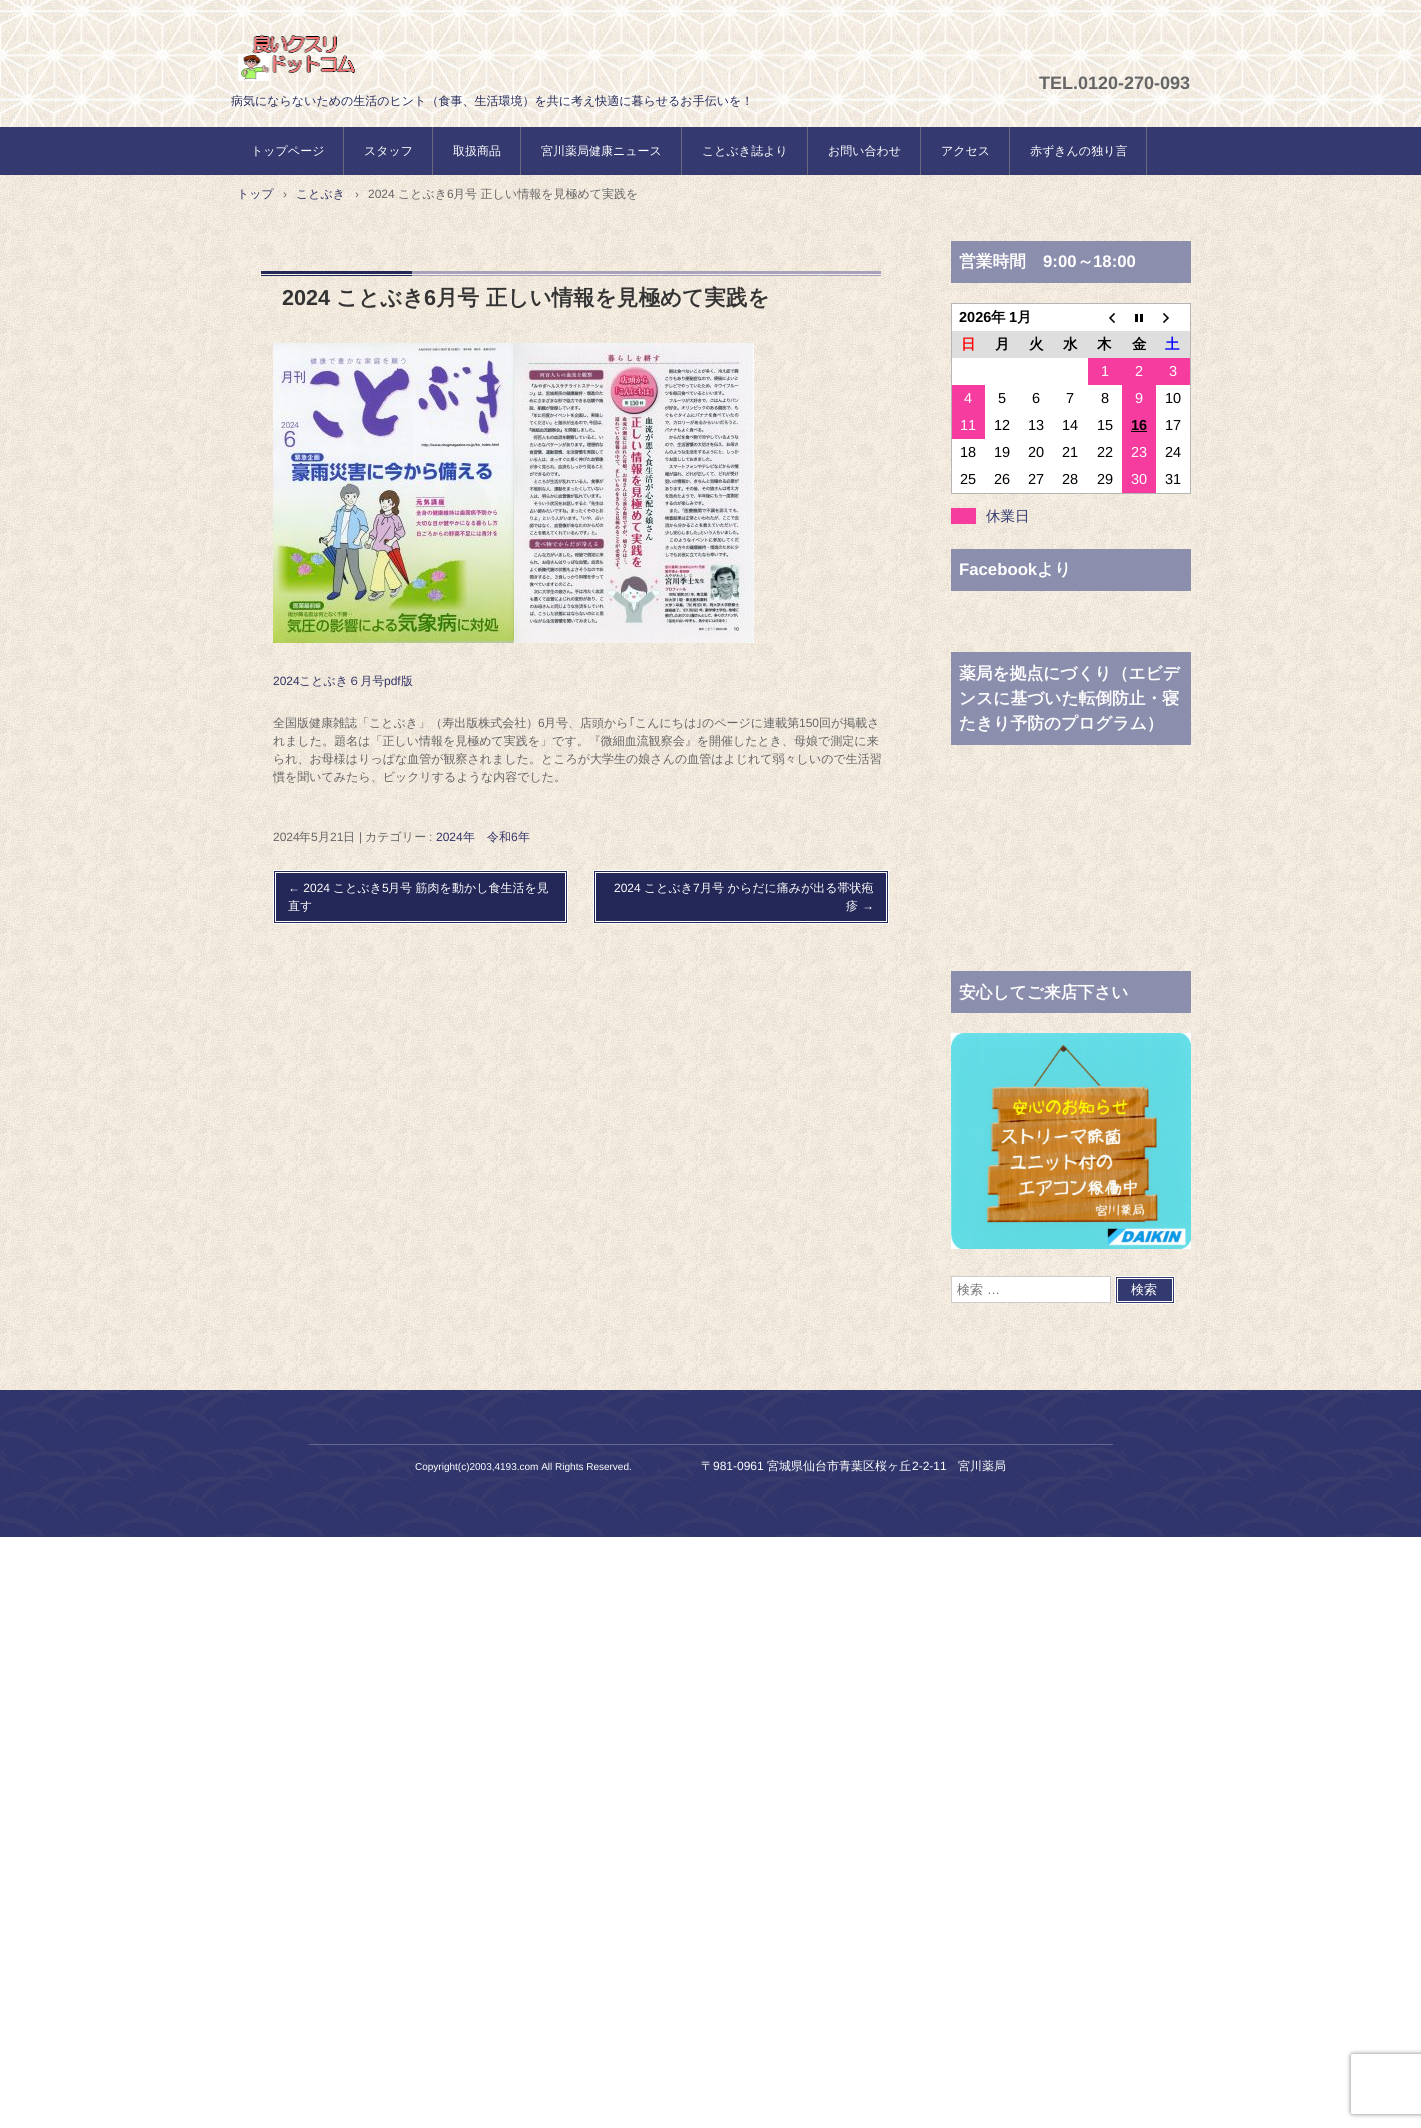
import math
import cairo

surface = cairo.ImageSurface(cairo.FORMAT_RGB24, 1421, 2128)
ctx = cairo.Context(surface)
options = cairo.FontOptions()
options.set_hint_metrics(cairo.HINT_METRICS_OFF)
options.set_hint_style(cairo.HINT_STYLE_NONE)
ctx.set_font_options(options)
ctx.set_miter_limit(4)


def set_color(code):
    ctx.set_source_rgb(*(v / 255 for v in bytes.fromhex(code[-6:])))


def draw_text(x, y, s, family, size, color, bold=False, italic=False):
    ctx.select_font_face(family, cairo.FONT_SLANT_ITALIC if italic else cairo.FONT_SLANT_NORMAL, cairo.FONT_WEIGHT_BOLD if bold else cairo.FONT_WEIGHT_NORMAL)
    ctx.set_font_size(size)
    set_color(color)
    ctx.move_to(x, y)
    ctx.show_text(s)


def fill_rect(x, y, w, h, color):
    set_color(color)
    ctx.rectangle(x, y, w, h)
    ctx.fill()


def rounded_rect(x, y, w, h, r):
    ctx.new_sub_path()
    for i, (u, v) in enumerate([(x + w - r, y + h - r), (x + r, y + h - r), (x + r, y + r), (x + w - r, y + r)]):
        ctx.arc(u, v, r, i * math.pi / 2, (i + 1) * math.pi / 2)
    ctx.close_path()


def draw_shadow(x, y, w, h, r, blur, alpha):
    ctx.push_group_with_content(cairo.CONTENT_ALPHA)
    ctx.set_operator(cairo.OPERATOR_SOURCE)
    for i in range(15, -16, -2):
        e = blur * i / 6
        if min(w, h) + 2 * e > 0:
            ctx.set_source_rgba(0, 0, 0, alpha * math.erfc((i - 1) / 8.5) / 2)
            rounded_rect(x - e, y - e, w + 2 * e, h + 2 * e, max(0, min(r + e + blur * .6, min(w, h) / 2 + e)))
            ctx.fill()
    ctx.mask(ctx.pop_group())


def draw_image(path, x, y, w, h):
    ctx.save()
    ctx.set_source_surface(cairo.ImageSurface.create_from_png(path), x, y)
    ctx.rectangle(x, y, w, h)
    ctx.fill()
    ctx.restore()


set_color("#ffffff")
ctx.paint()
draw_image("assets/img1.png", 0, 175, 1421, 1215)
draw_image("assets/img2.png", 0, 0, 1421, 127)
draw_text(1039, 89, "TEL.0120-270-093", "Liberation Sans", 18, "#666666", bold=True)
draw_image("assets/img3.png", 238, 34, 118, 47)
draw_text(231, 105, "病気にならないための生活のヒント（食事、生活環境）を共に考え快適に暮らせるお手伝いを！", "WenQuanYi Zen Hei Medium", 12, "#262a58")
fill_rect(0, 127, 1421, 48, "#343970")
fill_rect(343, 127, 1, 48, "#68697e")
draw_text(251, 155, "トップページ", "WenQuanYi Zen Hei Medium", 12, "#ffffff")
fill_rect(432, 127, 1, 48, "#68697e")
draw_text(364, 155, "スタッフ", "WenQuanYi Zen Hei Medium", 12, "#ffffff")
fill_rect(520, 127, 1, 48, "#68697e")
draw_text(453, 155, "取扱商品", "WenQuanYi Zen Hei Medium", 12, "#ffffff")
fill_rect(681, 127, 1, 48, "#68697e")
draw_text(541, 155, "宮川薬局健康ニュース", "WenQuanYi Zen Hei Medium", 12, "#ffffff")
fill_rect(807, 127, 1, 48, "#68697e")
draw_text(702, 155, "ことぶき誌より", "WenQuanYi Zen Hei Medium", 12, "#ffffff")
fill_rect(920, 127, 1, 48, "#68697e")
draw_text(828, 155, "お問い合わせ", "WenQuanYi Zen Hei Medium", 12, "#ffffff")
fill_rect(1009, 127, 1, 48, "#68697e")
draw_text(941, 155, "アクセス", "WenQuanYi Zen Hei Medium", 12, "#ffffff")
fill_rect(1146, 127, 1, 48, "#68697e")
draw_text(1030, 155, "赤ずきんの独り言", "WenQuanYi Zen Hei Medium", 12, "#ffffff")
draw_text(237, 198, "トップ", "WenQuanYi Zen Hei Medium", 12, "#333366")
draw_text(283, 198, "›", "Liberation Sans", 12, "#666666")
draw_text(296, 198, "ことぶき", "WenQuanYi Zen Hei Medium", 12, "#333366")
draw_text(355, 198, "›", "Liberation Sans", 12, "#666666")
draw_text(368, 198, "2024", "Liberation Sans", 12, "#666666")
draw_text(398, 198, "ことぶき", "WenQuanYi Zen Hei Medium", 12, "#666666")
draw_text(447, 198, "6", "Liberation Sans", 12, "#666666")
draw_text(453, 198, "月号 正しい情報を見極めて実践を", "WenQuanYi Zen Hei Medium", 12, "#666666")
draw_image("assets/img4.png", 261, 271, 620, 5)
draw_text(282, 305, "2024", "Liberation Sans", 21.6, "#333333", bold=True)
draw_text(336, 305, "ことぶき", "WenQuanYi Zen Hei", 21.6, "#333333", bold=True)
draw_text(424, 305, "6", "Liberation Sans", 21.6, "#333333", bold=True)
draw_text(436, 305, "月号 正しい情報を見極めて実践を", "WenQuanYi Zen Hei", 21.6, "#333333", bold=True)
draw_image("assets/img5.png", 273, 343, 241, 300)
draw_image("assets/img6.png", 514, 343, 240, 300)
draw_text(273, 685, "2024", "Liberation Sans", 12, "#333366")
draw_text(299, 685, "ことぶき６月号", "WenQuanYi Zen Hei Medium", 12, "#333366")
draw_text(384, 685, "pdf", "Liberation Sans", 12, "#333366")
draw_text(401, 685, "版", "WenQuanYi Zen Hei Medium", 12, "#333366")
draw_text(273, 727, "全国版健康雑誌「ことぶき」（寿出版株式会社）", "WenQuanYi Zen Hei Medium", 12, "#666666")
draw_text(538, 727, "6", "Liberation Sans", 12, "#666666")
draw_text(544, 727, "月号、店頭から", "WenQuanYi Zen Hei Medium", 12, "#666666")
draw_text(629, 727, "｢", "IPAPGothic", 12, "#666666")
draw_text(635, 727, "こんにちは", "WenQuanYi Zen Hei Medium", 12, "#666666")
draw_text(696, 727, "｣", "IPAPGothic", 12, "#666666")
draw_text(702, 727, "のページに連載第", "WenQuanYi Zen Hei Medium", 12, "#666666")
draw_text(799, 727, "150", "Liberation Sans", 12, "#666666")
draw_text(819, 727, "回が掲載さ", "WenQuanYi Zen Hei Medium", 12, "#666666")
draw_text(273, 745, "れました。題名は「正しい情報を見極めて実践を」です。『微細血流観察会』を開催したとき、母娘で測定に来", "WenQuanYi Zen Hei Medium", 12, "#666666")
draw_text(273, 763, "られ、お母様はりっぱな血管が観察されました。ところが大学生の娘さんの血管はよじれて弱々しいので生活習", "WenQuanYi Zen Hei Medium", 12, "#666666")
draw_text(273, 781, "慣を聞いてみたら、ビックリするような内容でした。", "WenQuanYi Zen Hei Medium", 12, "#666666")
draw_text(273, 841, "2024", "Liberation Sans", 12, "#666666")
draw_text(299, 841, "年", "WenQuanYi Zen Hei Medium", 12, "#666666")
draw_text(311, 841, "5", "Liberation Sans", 12, "#666666")
draw_text(318, 841, "月", "WenQuanYi Zen Hei Medium", 12, "#666666")
draw_text(330, 841, "21", "Liberation Sans", 12, "#666666")
draw_text(343, 841, "日", "WenQuanYi Zen Hei Medium", 12, "#666666")
draw_text(359, 841, "|", "Liberation Sans", 12, "#666666")
draw_text(365, 841, "カテゴリー", "WenQuanYi Zen Hei Medium", 12, "#666666")
draw_text(429, 841, ":", "Liberation Sans", 12, "#666666")
draw_text(436, 841, "2024", "Liberation Sans", 12, "#333366")
draw_text(463, 841, "年　令和", "WenQuanYi Zen Hei Medium", 12, "#333366")
draw_text(511, 841, "6", "Liberation Sans", 12, "#333366")
draw_text(518, 841, "年", "WenQuanYi Zen Hei Medium", 12, "#333366")
set_color("#242858")
ctx.rectangle(273.5, 870.5, 294, 53)
ctx.fill_preserve()
set_color("#ffffff")
ctx.set_line_width(1)
ctx.stroke()
ctx.rectangle(275.5, 872.5, 290, 49)
ctx.stroke()
draw_text(288, 892, "← 2024", "Liberation Sans", 12, "#ffffff")
draw_text(333, 892, "ことぶき", "WenQuanYi Zen Hei Medium", 12, "#ffffff")
draw_text(382, 892, "5", "Liberation Sans", 12, "#ffffff")
draw_text(388, 892, "月号 筋肉を動かし食生活を見", "WenQuanYi Zen Hei Medium", 12, "#ffffff")
draw_text(288, 910, "直す", "WenQuanYi Zen Hei Medium", 12, "#ffffff")
set_color("#242858")
ctx.rectangle(593.5, 870.5, 295, 53)
ctx.fill_preserve()
set_color("#ffffff")
ctx.stroke()
ctx.rectangle(595.5, 872.5, 291, 49)
ctx.stroke()
draw_text(614, 892, "2024", "Liberation Sans", 12, "#ffffff")
draw_text(644, 892, "ことぶき", "WenQuanYi Zen Hei Medium", 12, "#ffffff")
draw_text(693, 892, "7", "Liberation Sans", 12, "#ffffff")
draw_text(700, 892, "月号 からだに痛みが出る帯状疱", "WenQuanYi Zen Hei Medium", 12, "#ffffff")
draw_text(846, 910, "疹", "WenQuanYi Zen Hei Medium", 12, "#ffffff")
draw_text(862, 910, "→", "Liberation Sans", 12, "#ffffff")
fill_rect(951, 241, 240, 42, "#8b8ead")
draw_text(959, 267, "営業時間", "WenQuanYi Zen Hei", 16.75, "#ffffff", bold=True)
draw_text(1043, 267, "9:00", "Liberation Sans", 16.75, "#ffffff", bold=True)
draw_text(1077, 267, "～", "WenQuanYi Zen Hei", 16.75, "#ffffff", bold=True)
draw_text(1093, 267, "18:00", "Liberation Sans", 16.75, "#ffffff", bold=True)
fill_rect(952, 304, 238, 189, "#ffffff")
fill_rect(951, 303, 240, 1, "#b5b5b6")
fill_rect(1190, 303, 1, 191, "#b5b5b6")
fill_rect(951, 493, 240, 1, "#b5b5b6")
fill_rect(951, 303, 1, 191, "#b5b5b6")
draw_text(959, 322, "2026", "Liberation Sans", 14.5, "#000000", bold=True)
draw_text(991, 322, "年", "WenQuanYi Zen Hei", 14.5, "#000000", bold=True)
draw_text(1009, 322, "1", "Liberation Sans", 14.5, "#000000", bold=True)
draw_text(1017, 322, "月", "WenQuanYi Zen Hei", 14.5, "#000000", bold=True)
draw_image("assets/img7.png", 1109, 313, 6, 10)
draw_image("assets/img8.png", 1135, 314, 8, 8)
draw_image("assets/img9.png", 1163, 313, 6, 10)
fill_rect(952, 331, 238, 27, "#dedede")
draw_text(961, 349, "日", "WenQuanYi Zen Hei", 14.5, "#ff0000", bold=True)
draw_text(995, 349, "月", "WenQuanYi Zen Hei", 14.5, "#000000", bold=True)
draw_text(1029, 349, "火", "WenQuanYi Zen Hei", 14.5, "#000000", bold=True)
draw_text(1063, 349, "水", "WenQuanYi Zen Hei", 14.5, "#000000", bold=True)
draw_text(1097, 349, "木", "WenQuanYi Zen Hei", 14.5, "#000000", bold=True)
draw_text(1132, 349, "金", "WenQuanYi Zen Hei", 14.5, "#000000", bold=True)
draw_text(1165, 349, "土", "WenQuanYi Zen Hei", 14.5, "#0000ff", bold=True)
fill_rect(1088, 358, 102, 27, "#f63c9f")
draw_text(1101, 376, "1", "Liberation Sans", 14.5, "#ffffff")
draw_text(1135, 376, "2", "Liberation Sans", 14.5, "#ffffff")
draw_text(1169, 376, "3", "Liberation Sans", 14.5, "#ffffff")
fill_rect(952, 385, 33, 54, "#f63c9f")
draw_text(964, 403, "4", "Liberation Sans", 14.5, "#ffffff")
draw_text(998, 403, "5", "Liberation Sans", 14.5, "#000000")
draw_text(1032, 403, "6", "Liberation Sans", 14.5, "#000000")
draw_text(1066, 403, "7", "Liberation Sans", 14.5, "#000000")
draw_text(1101, 403, "8", "Liberation Sans", 14.5, "#000000")
fill_rect(1122, 385, 34, 108, "#f63c9f")
draw_text(1135, 403, "9", "Liberation Sans", 14.5, "#ffffff")
draw_text(1165, 403, "10", "Liberation Sans", 14.5, "#000000")
draw_text(960, 430, "11", "Liberation Sans", 14.5, "#ffffff")
draw_text(994, 430, "12", "Liberation Sans", 14.5, "#000000")
draw_text(1028, 430, "13", "Liberation Sans", 14.5, "#000000")
draw_text(1062, 430, "14", "Liberation Sans", 14.5, "#000000")
draw_text(1097, 430, "15", "Liberation Sans", 14.5, "#000000")
draw_text(1131, 430, "16", "Liberation Sans", 14.5, "#000000", bold=True)
fill_rect(1131, 431, 16, 1, "#000000")
draw_text(1165, 430, "17", "Liberation Sans", 14.5, "#000000")
draw_text(960, 457, "18", "Liberation Sans", 14.5, "#000000")
draw_text(994, 457, "19", "Liberation Sans", 14.5, "#000000")
draw_text(1028, 457, "20", "Liberation Sans", 14.5, "#000000")
draw_text(1062, 457, "21", "Liberation Sans", 14.5, "#000000")
draw_text(1097, 457, "22", "Liberation Sans", 14.5, "#000000")
draw_text(1131, 457, "23", "Liberation Sans", 14.5, "#ffffff")
draw_text(1165, 457, "24", "Liberation Sans", 14.5, "#000000")
draw_text(960, 484, "25", "Liberation Sans", 14.5, "#000000")
draw_text(994, 484, "26", "Liberation Sans", 14.5, "#000000")
draw_text(1028, 484, "27", "Liberation Sans", 14.5, "#000000")
draw_text(1062, 484, "28", "Liberation Sans", 14.5, "#000000")
draw_text(1097, 484, "29", "Liberation Sans", 14.5, "#000000")
draw_text(1131, 484, "30", "Liberation Sans", 14.5, "#ffffff")
draw_text(1165, 484, "31", "Liberation Sans", 14.5, "#000000")
fill_rect(951, 508, 25, 16, "#f63c9f")
draw_text(986, 521, "休業日", "WenQuanYi Zen Hei Medium", 14.5, "#343970")
fill_rect(951, 549, 240, 42, "#8b8ead")
draw_text(959, 575, "Facebook", "Liberation Sans", 16.75, "#ffffff", bold=True)
draw_text(1037, 575, "より", "WenQuanYi Zen Hei", 16.75, "#ffffff", bold=True)
fill_rect(951, 652, 240, 93, "#8b8ead")
draw_text(959, 679, "薬局を拠点にづくり（エビデ", "WenQuanYi Zen Hei", 16.75, "#ffffff", bold=True)
draw_text(959, 704, "ンスに基づいた転倒防止・寝", "WenQuanYi Zen Hei", 16.75, "#ffffff", bold=True)
draw_text(959, 729, "たきり予防のプログラム）", "WenQuanYi Zen Hei", 16.75, "#ffffff", bold=True)
fill_rect(951, 971, 240, 42, "#8b8ead")
draw_text(959, 998, "安心してご来店下さい", "WenQuanYi Zen Hei", 16.75, "#ffffff", bold=True)
draw_image("assets/img10.png", 951, 1033, 240, 216)
ctx.rectangle(951.5, 1276.5, 159, 26)
ctx.fill_preserve()
set_color("#cccccc")
ctx.stroke()
draw_text(957, 1294, "検索", "WenQuanYi Zen Hei Medium", 13, "#757575")
draw_text(987, 1294, "…", "Liberation Sans", 13, "#757575")
set_color("#333a70")
ctx.rectangle(1115.5, 1276.5, 59, 27)
ctx.fill_preserve()
set_color("#ffffff")
ctx.stroke()
ctx.rectangle(1117.5, 1278.5, 55, 23)
ctx.stroke()
draw_text(1131, 1294, "検索", "WenQuanYi Zen Hei Medium", 13, "#ffffff")
draw_image("assets/img11.png", 0, 1390, 1421, 147)
fill_rect(309, 1444, 804, 1, "#646790")
draw_text(415, 1470, "Copyright(c)2003,4193.com All Rights Reserved.", "Liberation Sans", 10, "#ffffff")
draw_text(701, 1470, "〒", "WenQuanYi Zen Hei Medium", 12, "#ffffff")
draw_text(713, 1470, "981-0961", "Liberation Sans", 12, "#ffffff")
draw_text(767, 1470, "宮城県仙台市青葉区桜ヶ丘", "WenQuanYi Zen Hei Medium", 12, "#ffffff")
draw_text(912, 1470, "2-2-11", "Liberation Sans", 12, "#ffffff")
draw_text(958, 1470, "宮川薬局", "WenQuanYi Zen Hei Medium", 12, "#ffffff")
ctx.save()
ctx.set_fill_rule(cairo.FILL_RULE_EVEN_ODD)
ctx.new_path()
ctx.move_to(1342, 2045)
ctx.line_to(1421, 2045)
ctx.line_to(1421, 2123)
ctx.line_to(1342, 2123)
ctx.close_path()
ctx.move_to(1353, 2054)
ctx.line_to(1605, 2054)
ctx.curve_to(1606, 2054, 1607, 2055, 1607, 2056)
ctx.line_to(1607, 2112)
ctx.curve_to(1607, 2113, 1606, 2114, 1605, 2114)
ctx.line_to(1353, 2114)
ctx.curve_to(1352, 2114, 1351, 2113, 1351, 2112)
ctx.line_to(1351, 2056)
ctx.curve_to(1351, 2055, 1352, 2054, 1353, 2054)
ctx.close_path()
ctx.clip()
set_color("#808080")
draw_shadow(1351, 2054, 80, 60, 2, 2.5, 1)
ctx.restore()
surface.write_to_png("output.png")
